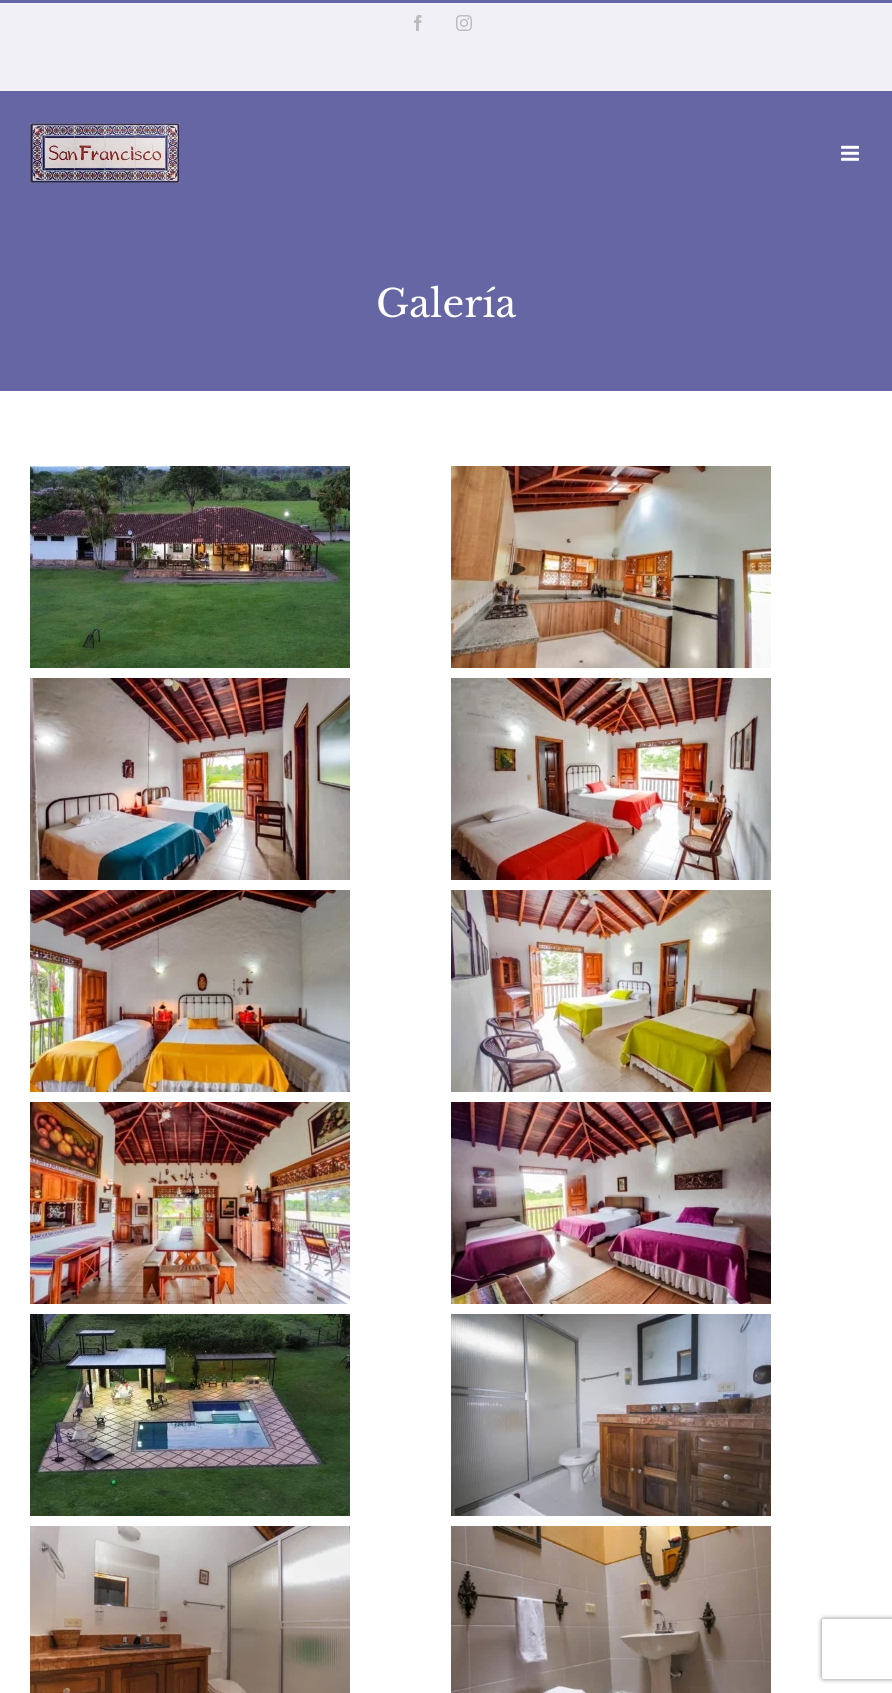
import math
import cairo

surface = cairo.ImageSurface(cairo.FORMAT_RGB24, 892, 1693)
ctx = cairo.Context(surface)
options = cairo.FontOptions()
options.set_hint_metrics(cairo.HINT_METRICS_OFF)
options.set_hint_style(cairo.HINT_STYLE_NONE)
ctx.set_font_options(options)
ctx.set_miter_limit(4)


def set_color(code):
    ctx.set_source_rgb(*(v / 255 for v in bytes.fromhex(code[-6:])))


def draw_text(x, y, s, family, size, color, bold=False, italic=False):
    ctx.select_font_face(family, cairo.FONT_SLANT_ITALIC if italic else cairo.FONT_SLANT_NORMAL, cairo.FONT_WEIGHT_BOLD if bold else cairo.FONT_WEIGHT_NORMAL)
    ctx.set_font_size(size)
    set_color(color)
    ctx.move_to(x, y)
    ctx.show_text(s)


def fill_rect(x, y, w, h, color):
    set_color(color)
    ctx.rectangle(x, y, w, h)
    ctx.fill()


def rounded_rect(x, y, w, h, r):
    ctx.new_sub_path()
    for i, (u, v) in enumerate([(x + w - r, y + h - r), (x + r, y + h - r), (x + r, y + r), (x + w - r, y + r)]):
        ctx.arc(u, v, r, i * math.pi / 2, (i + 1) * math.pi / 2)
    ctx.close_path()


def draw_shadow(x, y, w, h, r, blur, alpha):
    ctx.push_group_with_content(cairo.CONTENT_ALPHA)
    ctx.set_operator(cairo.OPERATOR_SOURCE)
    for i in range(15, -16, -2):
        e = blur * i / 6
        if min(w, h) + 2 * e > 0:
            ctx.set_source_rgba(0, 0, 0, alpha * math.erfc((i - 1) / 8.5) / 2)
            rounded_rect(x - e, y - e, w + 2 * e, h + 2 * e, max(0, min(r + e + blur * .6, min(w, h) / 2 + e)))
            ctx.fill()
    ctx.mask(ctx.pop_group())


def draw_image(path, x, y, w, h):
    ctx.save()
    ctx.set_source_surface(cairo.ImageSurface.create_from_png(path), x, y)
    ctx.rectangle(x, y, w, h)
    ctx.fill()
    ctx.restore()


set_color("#ffffff")
ctx.paint()
fill_rect(0, 3, 892, 88, "#f0f0f6")
fill_rect(0, 0, 892, 3, "#6666a4")
draw_image("assets/img1.png", 414, 15, 8, 16)
draw_image("assets/img2.png", 456, 15, 16, 16)
fill_rect(0, 91, 892, 300, "#6666a4")
draw_image("assets/img3.png", 30, 123, 150, 60)
draw_image("assets/img4.png", 841, 145, 18, 16)
draw_text(376, 317, "Galería", "Libre Baskerville", 38, "#ffffff")
draw_image("assets/img5.png", 30, 466, 320, 202)
draw_image("assets/img6.png", 451, 466, 320, 202)
draw_image("assets/img7.png", 30, 678, 320, 202)
draw_image("assets/img8.png", 451, 678, 320, 202)
draw_image("assets/img9.png", 30, 890, 320, 202)
draw_image("assets/img10.png", 451, 890, 320, 202)
draw_image("assets/img11.png", 30, 1102, 320, 202)
draw_image("assets/img12.png", 451, 1102, 320, 202)
draw_image("assets/img13.png", 30, 1314, 320, 202)
draw_image("assets/img14.png", 451, 1314, 320, 202)
draw_image("assets/img15.png", 30, 1526, 320, 167)
draw_image("assets/img16.png", 451, 1526, 320, 167)
ctx.save()
ctx.set_fill_rule(cairo.FILL_RULE_EVEN_ODD)
ctx.new_path()
ctx.move_to(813, 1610)
ctx.line_to(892, 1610)
ctx.line_to(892, 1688)
ctx.line_to(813, 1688)
ctx.close_path()
ctx.move_to(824, 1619)
ctx.line_to(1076, 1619)
ctx.curve_to(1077, 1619, 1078, 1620, 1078, 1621)
ctx.line_to(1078, 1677)
ctx.curve_to(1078, 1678, 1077, 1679, 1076, 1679)
ctx.line_to(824, 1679)
ctx.curve_to(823, 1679, 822, 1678, 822, 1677)
ctx.line_to(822, 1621)
ctx.curve_to(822, 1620, 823, 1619, 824, 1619)
ctx.close_path()
ctx.clip()
set_color("#808080")
draw_shadow(822, 1619, 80, 60, 2, 2.5, 1)
ctx.restore()
surface.write_to_png("output.png")
